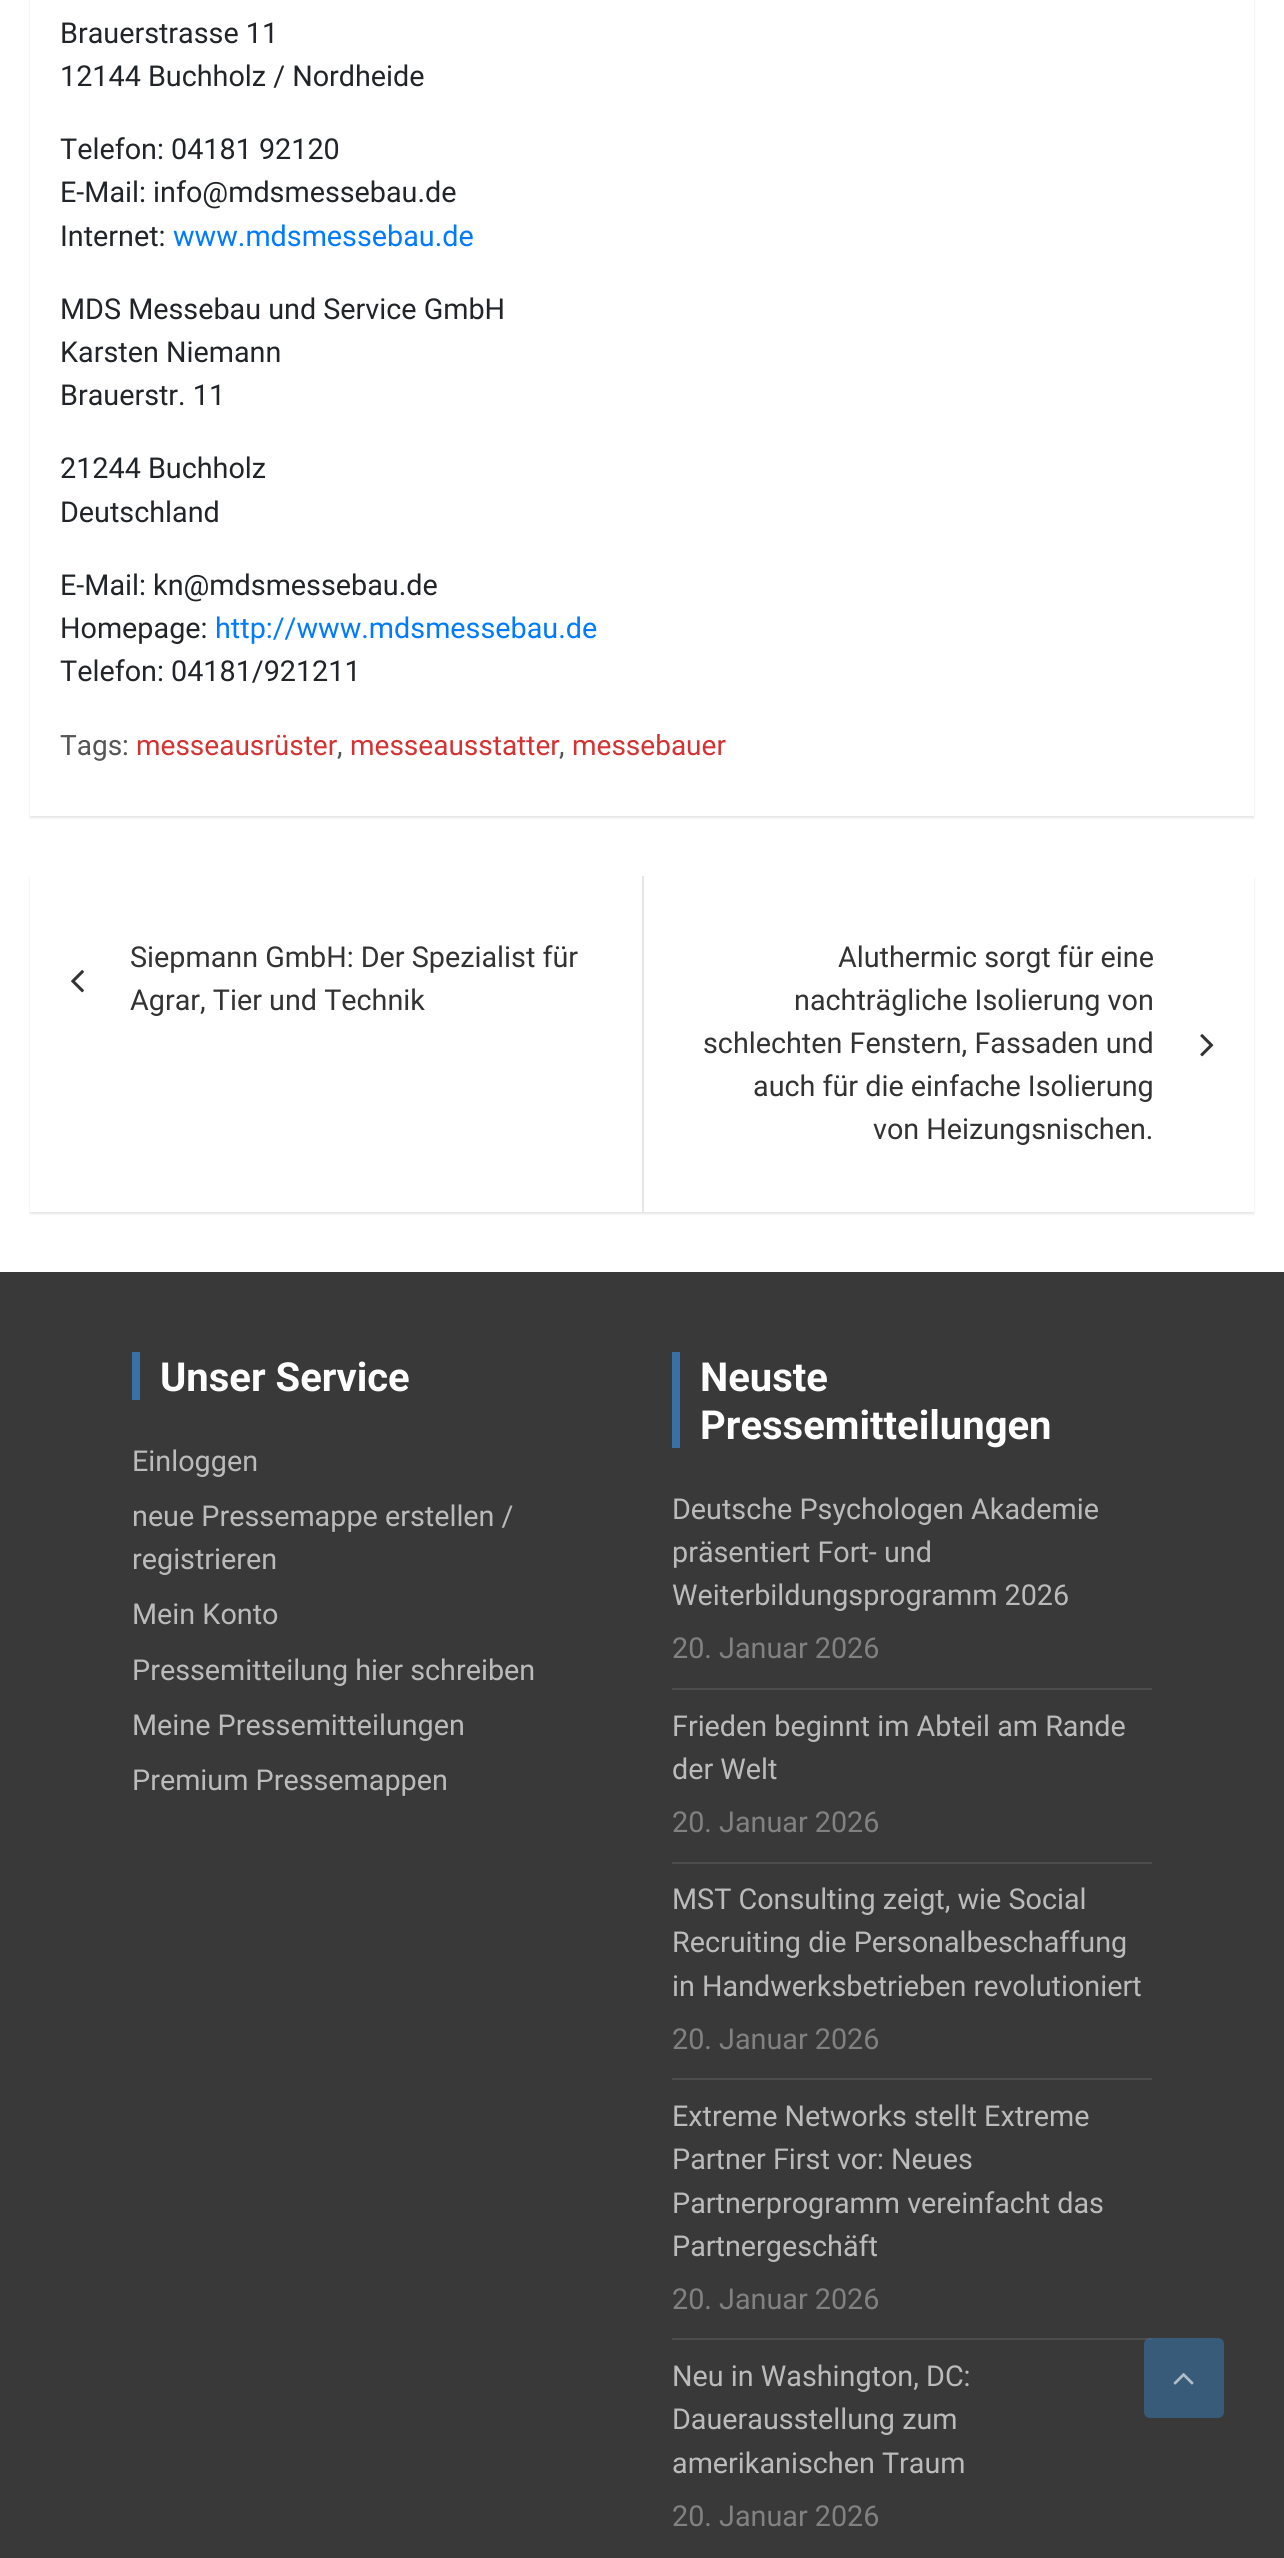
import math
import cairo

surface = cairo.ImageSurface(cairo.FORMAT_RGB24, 1284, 2558)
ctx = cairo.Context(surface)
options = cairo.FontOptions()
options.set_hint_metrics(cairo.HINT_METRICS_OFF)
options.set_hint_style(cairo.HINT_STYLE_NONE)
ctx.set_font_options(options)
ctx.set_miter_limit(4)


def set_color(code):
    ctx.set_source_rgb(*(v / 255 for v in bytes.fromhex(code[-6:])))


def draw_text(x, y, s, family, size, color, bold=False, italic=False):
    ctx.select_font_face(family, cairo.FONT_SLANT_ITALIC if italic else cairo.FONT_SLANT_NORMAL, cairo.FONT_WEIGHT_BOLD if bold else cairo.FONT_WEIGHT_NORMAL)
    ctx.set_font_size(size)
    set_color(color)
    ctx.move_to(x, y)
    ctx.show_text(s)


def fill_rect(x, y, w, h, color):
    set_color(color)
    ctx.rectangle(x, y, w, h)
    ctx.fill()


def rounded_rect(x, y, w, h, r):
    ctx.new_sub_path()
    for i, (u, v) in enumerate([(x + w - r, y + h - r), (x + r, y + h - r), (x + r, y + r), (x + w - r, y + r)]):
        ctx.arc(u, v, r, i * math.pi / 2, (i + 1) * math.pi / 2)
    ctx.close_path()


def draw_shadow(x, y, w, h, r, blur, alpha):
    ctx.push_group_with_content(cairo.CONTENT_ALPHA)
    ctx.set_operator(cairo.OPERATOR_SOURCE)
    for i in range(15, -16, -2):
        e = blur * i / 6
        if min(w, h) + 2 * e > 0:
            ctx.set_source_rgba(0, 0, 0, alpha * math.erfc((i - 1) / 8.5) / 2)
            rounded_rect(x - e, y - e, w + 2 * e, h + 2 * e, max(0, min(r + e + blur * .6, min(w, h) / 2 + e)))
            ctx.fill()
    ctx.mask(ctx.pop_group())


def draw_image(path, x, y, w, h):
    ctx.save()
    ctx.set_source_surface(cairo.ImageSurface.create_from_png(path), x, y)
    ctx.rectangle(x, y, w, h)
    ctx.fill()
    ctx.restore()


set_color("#ffffff")
ctx.paint()
ctx.save()
ctx.set_fill_rule(cairo.FILL_RULE_EVEN_ODD)
ctx.new_path()
ctx.move_to(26, 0)
ctx.line_to(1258, 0)
ctx.line_to(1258, 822)
ctx.line_to(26, 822)
ctx.close_path()
ctx.move_to(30, -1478)
ctx.line_to(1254, -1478)
ctx.line_to(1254, 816)
ctx.line_to(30, 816)
ctx.close_path()
ctx.clip()
set_color("#000000")
draw_shadow(30, -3, 1224, 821, 0, 1, 0.1)
ctx.restore()
draw_text(60, 43, "Brauerstrasse 11", "Roboto", 28.75, "#212529")
draw_text(60, 86, "12144 Buchholz / Nordheide", "Roboto", 28.75, "#212529")
draw_text(60, 159, "Telefon: 04181 92120", "Roboto", 28.75, "#212529")
draw_text(60, 202, "E-Mail: info@mdsmessebau.de", "Roboto", 28.75, "#212529")
draw_text(60, 246, "Internet:", "Roboto", 28.75, "#212529")
draw_text(173, 246, "www.mdsmessebau.de", "Roboto", 28.75, "#007bff")
draw_text(60, 319, "MDS Messebau und Service GmbH", "Roboto", 28.75, "#212529")
draw_text(60, 362, "Karsten Niemann", "Roboto", 28.75, "#212529")
draw_text(60, 405, "Brauerstr. 11", "Roboto", 28.75, "#212529")
draw_text(60, 478, "21244 Buchholz", "Roboto", 28.75, "#212529")
draw_text(60, 522, "Deutschland", "Roboto", 28.75, "#212529")
draw_text(60, 595, "E-Mail: kn@mdsmessebau.de", "Roboto", 28.75, "#212529")
draw_text(60, 638, "Homepage:", "Roboto", 28.75, "#212529")
draw_text(215, 638, "http://www.mdsmessebau.de", "Roboto", 28.75, "#007bff")
draw_text(60, 681, "Telefon: 04181/921211", "Roboto", 28.75, "#212529")
draw_text(60, 755, "Tags:", "Roboto", 28, "#555555")
draw_text(136, 755, "messeausrüster", "Roboto", 28, "#d33333")
draw_text(337, 755, ",", "Roboto", 28, "#555555")
draw_text(350, 755, "messeausstatter", "Roboto", 28, "#d33333")
draw_text(559, 755, ",", "Roboto", 28, "#555555")
draw_text(572, 755, "messebauer", "Roboto", 28, "#d33333")
ctx.save()
ctx.set_fill_rule(cairo.FILL_RULE_EVEN_ODD)
ctx.new_path()
ctx.move_to(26, 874)
ctx.line_to(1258, 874)
ctx.line_to(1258, 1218)
ctx.line_to(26, 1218)
ctx.close_path()
ctx.move_to(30, 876)
ctx.line_to(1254, 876)
ctx.line_to(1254, 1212)
ctx.line_to(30, 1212)
ctx.close_path()
ctx.clip()
set_color("#000000")
draw_shadow(30, 878, 1224, 336, 0, 1, 0.1)
ctx.restore()
draw_text(130, 967, "Siepmann GmbH: Der Spezialist für", "Roboto", 28.75, "#333333")
draw_image("assets/img1.png", 71, 970, 13, 23)
draw_text(130, 1010, "Agrar, Tier und Technik", "Roboto", 28.75, "#333333")
fill_rect(642, 876, 2, 336, "#e6e6e6")
draw_text(838, 967, "Aluthermic sorgt für eine", "Roboto", 28.75, "#333333")
draw_text(794, 1010, "nachträgliche Isolierung von", "Roboto", 28.75, "#333333")
draw_text(703, 1053, "schlechten Fenstern, Fassaden und", "Roboto", 28.75, "#333333")
draw_image("assets/img2.png", 1200, 1034, 14, 23)
draw_text(753, 1096, "auch für die einfache Isolierung", "Roboto", 28.75, "#333333")
draw_text(873, 1139, "von Heizungsnischen.", "Roboto", 28.75, "#333333")
fill_rect(0, 1272, 1284, 1286, "#393939")
fill_rect(132, 1352, 8, 48, "#3771a5")
draw_text(160, 1391, "Unser Service", "Roboto", 40, "#ffffff", bold=True)
draw_text(132, 1471, "Einloggen", "Roboto", 28.75, "#bbbbbb")
draw_text(132, 1526, "neue Pressemappe erstellen /", "Roboto", 28.75, "#bbbbbb")
draw_text(132, 1569, "registrieren", "Roboto", 28.75, "#bbbbbb")
draw_text(132, 1624, "Mein Konto", "Roboto", 28.75, "#bbbbbb")
draw_text(132, 1680, "Pressemitteilung hier schreiben", "Roboto", 28.75, "#bbbbbb")
draw_text(132, 1735, "Meine Pressemitteilungen", "Roboto", 28.75, "#bbbbbb")
draw_text(132, 1790, "Premium Pressemappen", "Roboto", 28.75, "#bbbbbb")
fill_rect(672, 1352, 8, 96, "#3771a5")
draw_text(700, 1391, "Neuste", "Roboto", 40, "#ffffff", bold=True)
draw_text(700, 1439, "Pressemitteilungen", "Roboto", 40, "#ffffff", bold=True)
fill_rect(672, 1688, 480, 2, "#4d4d4d")
draw_text(672, 1519, "Deutsche Psychologen Akademie", "Roboto", 28.75, "#bbbbbb")
draw_text(672, 1562, "präsentiert Fort- und", "Roboto", 28.75, "#bbbbbb")
draw_text(672, 1605, "Weiterbildungsprogramm 2026", "Roboto", 28.75, "#bbbbbb")
draw_text(672, 1658, "20. Januar 2026", "Roboto", 28.75, "#818181")
fill_rect(672, 1862, 480, 2, "#4d4d4d")
draw_text(672, 1736, "Frieden beginnt im Abteil am Rande", "Roboto", 28.75, "#bbbbbb")
draw_text(672, 1779, "der Welt", "Roboto", 28.75, "#bbbbbb")
draw_text(672, 1832, "20. Januar 2026", "Roboto", 28.75, "#818181")
fill_rect(672, 2078, 480, 2, "#4d4d4d")
draw_text(672, 1909, "MST Consulting zeigt, wie Social", "Roboto", 28.75, "#bbbbbb")
draw_text(672, 1952, "Recruiting die Personalbeschaffung", "Roboto", 28.75, "#bbbbbb")
draw_text(672, 1996, "in Handwerksbetrieben revolutioniert", "Roboto", 28.75, "#bbbbbb")
draw_text(672, 2049, "20. Januar 2026", "Roboto", 28.75, "#818181")
fill_rect(672, 2338, 480, 2, "#4d4d4d")
draw_text(672, 2126, "Extreme Networks stellt Extreme", "Roboto", 28.75, "#bbbbbb")
draw_text(672, 2169, "Partner First vor: Neues", "Roboto", 28.75, "#bbbbbb")
draw_text(672, 2213, "Partnerprogramm vereinfacht das", "Roboto", 28.75, "#bbbbbb")
draw_text(672, 2256, "Partnergeschäft", "Roboto", 28.75, "#bbbbbb")
draw_text(672, 2309, "20. Januar 2026", "Roboto", 28.75, "#818181")
draw_text(672, 2386, "Neu in Washington, DC:", "Roboto", 28.75, "#bbbbbb")
draw_text(672, 2429, "Dauerausstellung zum", "Roboto", 28.75, "#bbbbbb")
draw_text(672, 2473, "amerikanischen Traum", "Roboto", 28.75, "#bbbbbb")
draw_text(672, 2526, "20. Januar 2026", "Roboto", 28.75, "#818181")
ctx.set_source_rgba(0.216, 0.443, 0.647, 0.6)
rounded_rect(1144, 2338, 80, 80, 6)
ctx.fill()
draw_image("assets/img3.png", 1173, 2373, 21, 12)
surface.write_to_png("output.png")
